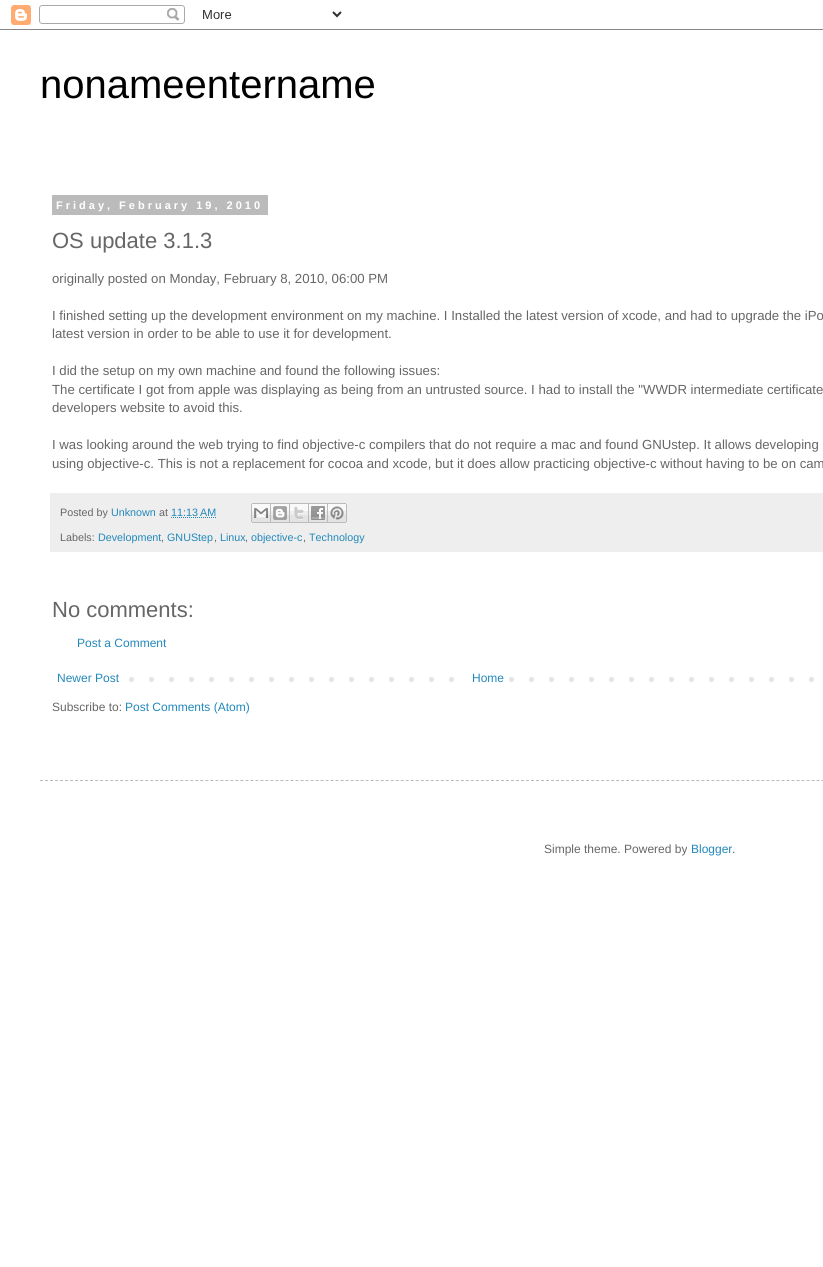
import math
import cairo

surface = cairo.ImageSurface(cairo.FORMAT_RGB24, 823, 1267)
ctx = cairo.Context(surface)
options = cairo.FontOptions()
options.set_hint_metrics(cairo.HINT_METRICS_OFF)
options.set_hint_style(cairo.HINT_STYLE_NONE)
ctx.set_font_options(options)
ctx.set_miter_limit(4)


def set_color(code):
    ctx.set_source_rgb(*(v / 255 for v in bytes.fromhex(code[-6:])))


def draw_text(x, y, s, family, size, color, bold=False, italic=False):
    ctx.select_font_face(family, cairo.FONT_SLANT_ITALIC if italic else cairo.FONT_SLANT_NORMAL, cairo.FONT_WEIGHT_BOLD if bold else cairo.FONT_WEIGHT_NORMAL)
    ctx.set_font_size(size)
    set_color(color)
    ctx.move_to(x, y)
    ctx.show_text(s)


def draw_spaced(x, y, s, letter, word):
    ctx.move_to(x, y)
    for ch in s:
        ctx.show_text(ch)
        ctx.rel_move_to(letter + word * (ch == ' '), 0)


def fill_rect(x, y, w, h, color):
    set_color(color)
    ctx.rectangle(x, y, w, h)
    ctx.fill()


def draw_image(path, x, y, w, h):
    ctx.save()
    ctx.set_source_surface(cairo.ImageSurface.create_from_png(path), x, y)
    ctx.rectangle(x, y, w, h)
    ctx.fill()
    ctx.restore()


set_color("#ffffff")
ctx.paint()
draw_image("assets/img1.png", 0, 5, 823, 25)
draw_text(40, 98, "nonameentername", "Liberation Sans", 40, "#000000")
fill_rect(52, 195, 216, 20, "#bbbbbb")
ctx.select_font_face("Liberation Sans", cairo.FONT_SLANT_NORMAL, cairo.FONT_WEIGHT_BOLD)
ctx.set_font_size(11)
set_color("#ffffff")
draw_spaced(56, 209, "Friday, February 19, 2010", 3, 0)
draw_text(52, 248, "OS update 3.1.3", "Liberation Sans", 22, "#666666")
draw_text(52, 283, "originally posted on Monday, February 8, 2010, 06:00 PM", "Liberation Sans", 13.2, "#666666")
draw_text(52, 320, "I finished setting up the development environment on my machine. I Installed the latest version of xcode, and had to upgrade the iPo", "Liberation Sans", 13.2, "#666666")
draw_text(52, 338, "latest version in order to be able to use it for development.", "Liberation Sans", 13.2, "#666666")
draw_text(52, 375, "I did the setup on my own machine and found the following issues:", "Liberation Sans", 13.2, "#666666")
draw_text(52, 394, "The certificate I got from apple was displaying as being from an untrusted source. I had to install the \"WWDR intermediate certificate", "Liberation Sans", 13.2, "#666666")
draw_text(52, 412, "developers website to avoid this.", "Liberation Sans", 13.2, "#666666")
draw_text(52, 449, "I was looking around the web trying to find objective-c compilers that do not require a mac and found GNUstep. It allows developing", "Liberation Sans", 13.2, "#666666")
draw_text(52, 468, "using objective-c. This is not a replacement for cocoa and xcode, but it does allow practicing objective-c without having to be on cam", "Liberation Sans", 13.2, "#666666")
fill_rect(50, 493, 773, 59, "#eeeeee")
draw_text(60, 516, "Posted by", "Liberation Sans", 10.75, "#666666")
draw_text(111, 516, "Unknown", "Liberation Sans", 10.75, "#2288bb")
draw_text(159, 516, "at", "Liberation Sans", 10.75, "#666666")
draw_text(171, 516, "11:13 AM", "Liberation Sans", 10.75, "#2288bb")
ctx.new_path()
ctx.move_to(171, 517.5)
ctx.line_to(216.5, 517.5)
ctx.set_line_width(1)
ctx.set_dash([1, 1])
ctx.stroke()
draw_image("assets/img2.png", 251, 503, 20, 20)
draw_image("assets/img3.png", 271, 503, 19, 20)
draw_image("assets/img4.png", 290, 503, 19, 20)
draw_image("assets/img5.png", 309, 503, 19, 20)
draw_image("assets/img6.png", 328, 503, 19, 20)
draw_text(60, 541, "Labels:", "Liberation Sans", 10.75, "#666666")
draw_text(98, 541, "Development", "Liberation Sans", 10.75, "#2288bb")
draw_text(161, 541, ",", "Liberation Sans", 10.75, "#666666")
draw_text(167, 541, "GNUStep", "Liberation Sans", 10.75, "#2288bb")
draw_text(214, 541, ",", "Liberation Sans", 10.75, "#666666")
draw_text(220, 541, "Linux", "Liberation Sans", 10.75, "#2288bb")
draw_text(245, 541, ",", "Liberation Sans", 10.75, "#666666")
draw_text(251, 541, "objective-c", "Liberation Sans", 10.75, "#2288bb")
draw_text(303, 541, ",", "Liberation Sans", 10.75, "#666666")
draw_text(309, 541, "Technology", "Liberation Sans", 10.75, "#2288bb")
draw_text(52, 617, "No comments:", "Liberation Sans", 22, "#666666")
draw_text(77, 647, "Post a Comment", "Liberation Sans", 12, "#2288bb")
draw_image("assets/img7.png", 129, 677, 685, 5)
draw_text(57, 682, "Newer Post", "Liberation Sans", 12, "#2288bb")
fill_rect(469, 677, 26, 5, "#ffffff")
draw_text(472, 682, "Home", "Liberation Sans", 12, "#2288bb")
draw_text(52, 711, "Subscribe to:", "Liberation Sans", 12, "#666666")
draw_text(125, 711, "Post Comments (Atom)", "Liberation Sans", 12, "#2288bb")
ctx.new_path()
ctx.move_to(40, 780.5)
ctx.line_to(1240, 780.5)
set_color("#bbbbbb")
ctx.set_dash([3, 2.01])
ctx.stroke()
draw_text(544, 853, "Simple theme. Powered by", "Liberation Sans", 12, "#666666")
draw_text(691, 853, "Blogger", "Liberation Sans", 12, "#2288bb")
draw_text(732, 853, ".", "Liberation Sans", 12, "#666666")
surface.write_to_png("output.png")
